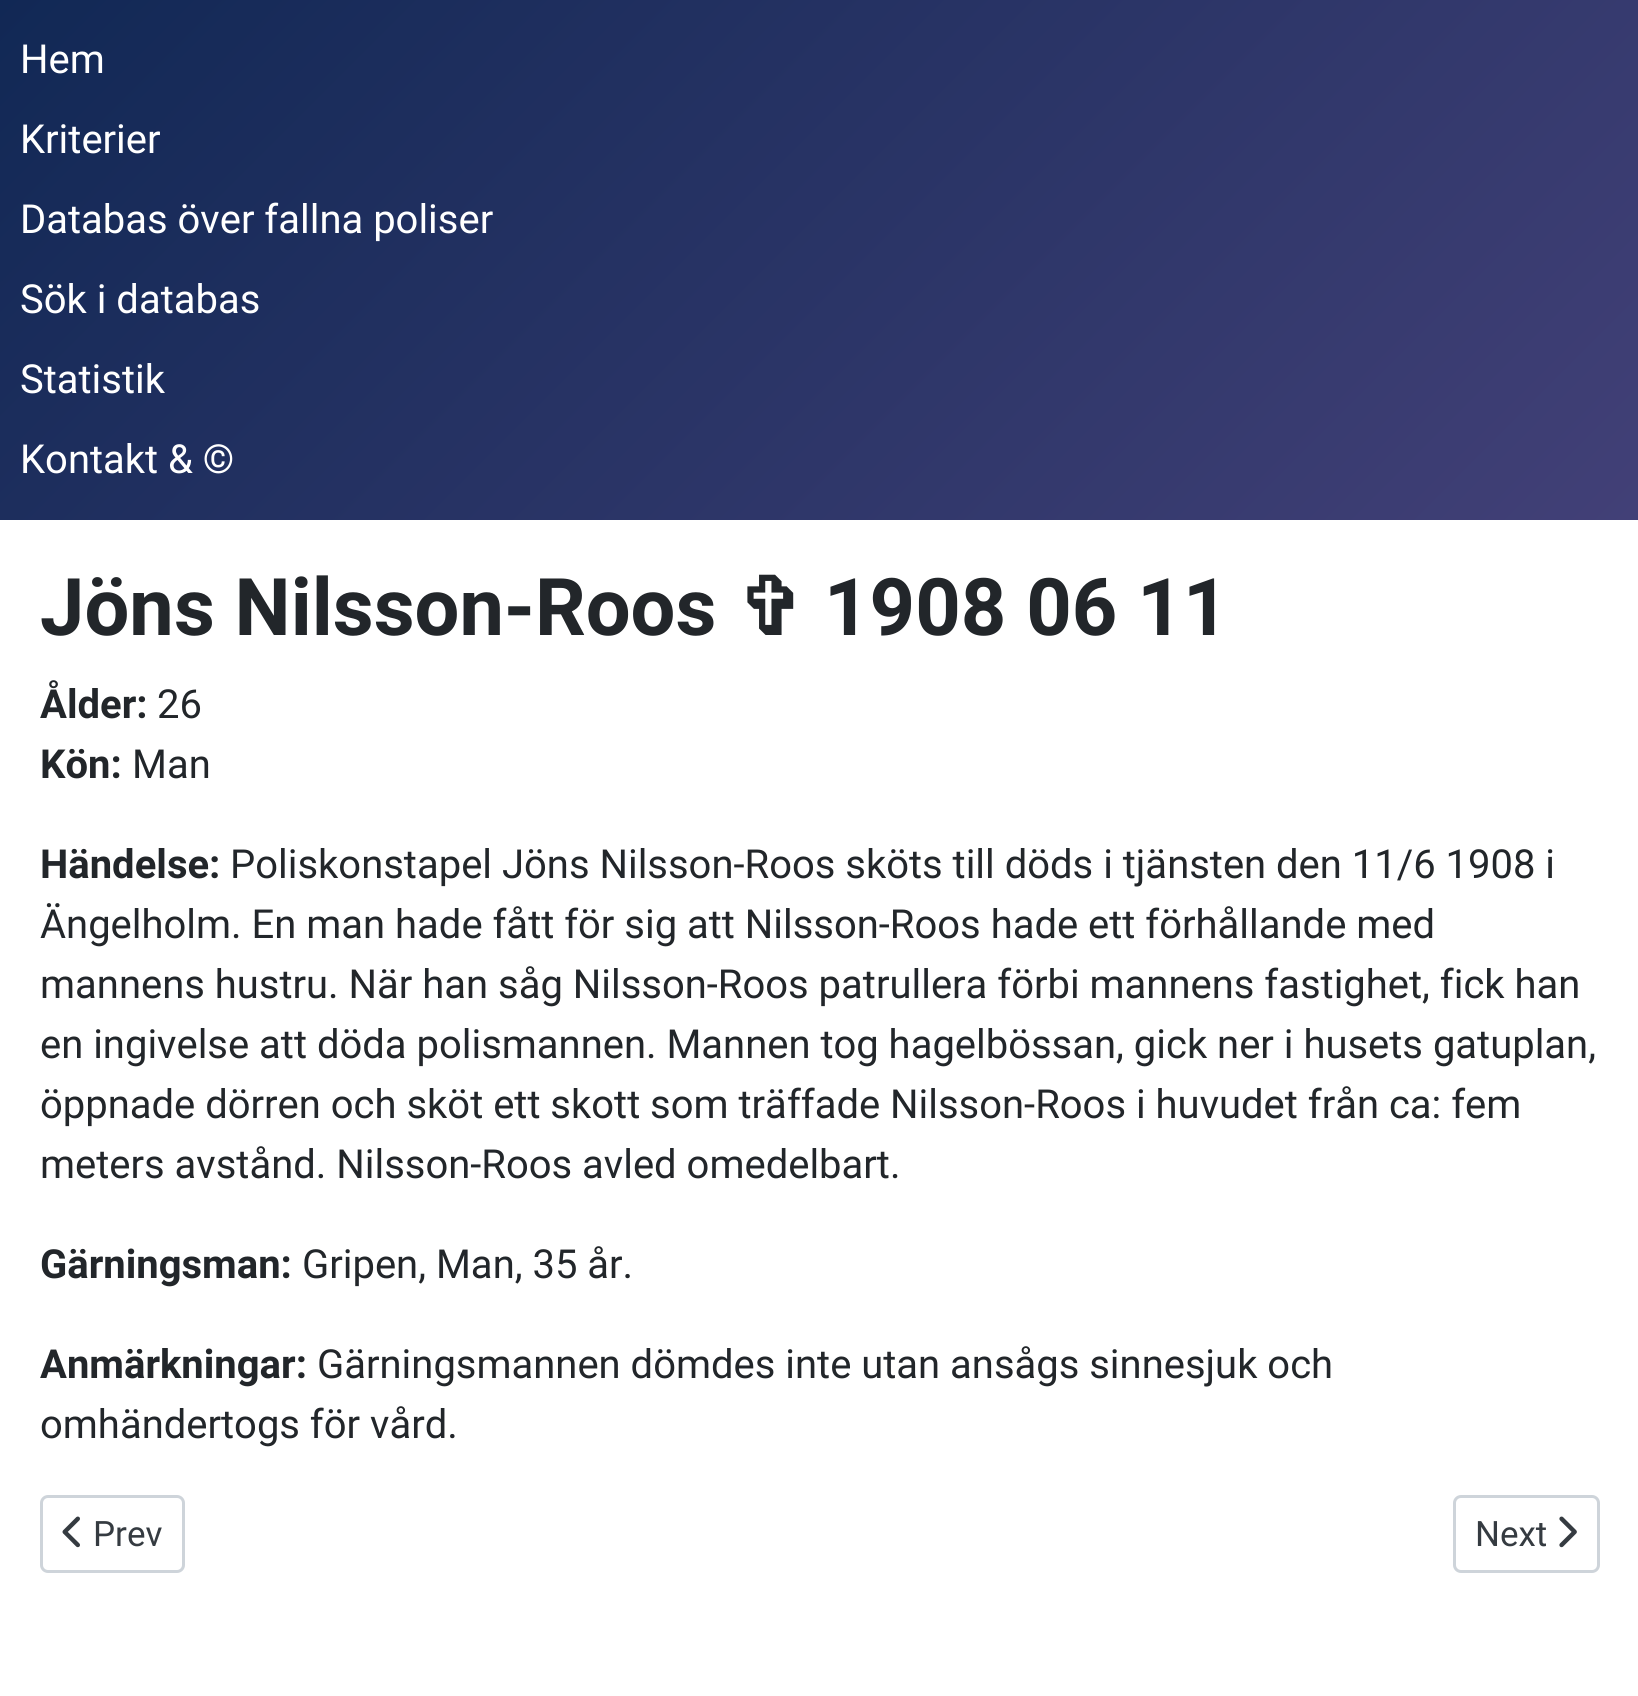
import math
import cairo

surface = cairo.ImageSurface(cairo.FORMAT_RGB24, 1638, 1696)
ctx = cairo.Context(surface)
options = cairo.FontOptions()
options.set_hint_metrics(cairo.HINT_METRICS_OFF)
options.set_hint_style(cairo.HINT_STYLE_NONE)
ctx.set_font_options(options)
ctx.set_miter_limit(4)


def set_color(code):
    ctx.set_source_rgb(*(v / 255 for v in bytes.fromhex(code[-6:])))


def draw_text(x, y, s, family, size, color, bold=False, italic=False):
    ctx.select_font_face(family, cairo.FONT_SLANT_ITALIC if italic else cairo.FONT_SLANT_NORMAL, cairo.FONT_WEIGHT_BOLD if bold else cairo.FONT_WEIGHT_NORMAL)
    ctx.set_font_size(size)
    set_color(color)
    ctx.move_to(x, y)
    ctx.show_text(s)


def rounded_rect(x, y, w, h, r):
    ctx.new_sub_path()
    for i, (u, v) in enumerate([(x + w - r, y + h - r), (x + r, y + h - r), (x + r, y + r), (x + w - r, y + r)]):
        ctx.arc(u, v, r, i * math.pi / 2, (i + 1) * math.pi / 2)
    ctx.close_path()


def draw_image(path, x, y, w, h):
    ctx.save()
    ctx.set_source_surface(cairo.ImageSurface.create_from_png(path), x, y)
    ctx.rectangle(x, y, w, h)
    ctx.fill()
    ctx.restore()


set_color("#ffffff")
ctx.paint()
gradient = cairo.LinearGradient(280, -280, 1360, 800)
gradient.add_color_stop_rgba(0, 0.067, 0.157, 0.333, 1)
gradient.add_color_stop_rgba(1, 0.259, 0.251, 0.467, 1)
ctx.set_source(gradient)
ctx.rectangle(0, 0, 1638, 520)
ctx.fill()
draw_text(20, 73, "Hem", "Roboto", 40, "#ffffff")
draw_text(20, 153, "Kriterier", "Roboto", 40, "#ffffff")
draw_text(20, 233, "Databas över fallna poliser", "Roboto", 40, "#ffffff")
draw_text(20, 313, "Sök i databas", "Roboto", 40, "#ffffff")
draw_text(20, 393, "Statistik", "Roboto", 40, "#ffffff")
draw_text(20, 473, "Kontakt & ©", "Roboto", 40, "#ffffff")
draw_text(40, 635, "Jöns Nilsson-Roos", "Roboto", 79.5, "#22262a", bold=True)
draw_text(737, 635, "✞", "DejaVu Sans", 79.5, "#22262a", bold=True)
draw_text(824, 635, "1908 06 11", "Roboto", 79.5, "#22262a", bold=True)
draw_text(40, 718, "Ålder:", "Roboto", 40, "#22262a", bold=True)
draw_text(157, 718, "26", "Roboto", 40, "#22262a")
draw_text(40, 778, "Kön:", "Roboto", 40, "#22262a", bold=True)
draw_text(132, 778, "Man", "Roboto", 40, "#22262a")
draw_text(40, 878, "Händelse:", "Roboto", 40, "#22262a", bold=True)
draw_text(230, 878, "Poliskonstapel Jöns Nilsson-Roos sköts till döds i tjänsten den 11/6 1908 i", "Roboto", 40, "#22262a")
draw_text(40, 938, "Ängelholm. En man hade fått för sig att Nilsson-Roos hade ett förhållande med", "Roboto", 40, "#22262a")
draw_text(40, 998, "mannens hustru. När han såg Nilsson-Roos patrullera förbi mannens fastighet, fick han", "Roboto", 40, "#22262a")
draw_text(40, 1058, "en ingivelse att döda polismannen. Mannen tog hagelbössan, gick ner i husets gatuplan,", "Roboto", 40, "#22262a")
draw_text(40, 1118, "öppnade dörren och sköt ett skott som träffade Nilsson-Roos i huvudet från ca: fem", "Roboto", 40, "#22262a")
draw_text(40, 1178, "meters avstånd. Nilsson-Roos avled omedelbart.", "Roboto", 40, "#22262a")
draw_text(40, 1278, "Gärningsman:", "Roboto", 40, "#22262a", bold=True)
draw_text(302, 1278, "Gripen, Man, 35 år.", "Roboto", 40, "#22262a")
draw_text(40, 1378, "Anmärkningar:", "Roboto", 40, "#22262a", bold=True)
draw_text(317, 1378, "Gärningsmannen dömdes inte utan ansågs sinnesjuk och", "Roboto", 40, "#22262a")
draw_text(40, 1438, "omhändertogs för vård.", "Roboto", 40, "#22262a")
rounded_rect(41.5, 1496.5, 142, 75, 6.5)
set_color("#ced4da")
ctx.set_line_width(3)
ctx.stroke()
draw_image("assets/img1.png", 62, 1516, 18, 32)
draw_text(93, 1546, "Prev", "Roboto", 35, "#353b41")
rounded_rect(1454.5, 1496.5, 144, 75, 6.5)
set_color("#ced4da")
ctx.stroke()
draw_text(1475, 1546, "Next", "Roboto", 35, "#353b41")
draw_image("assets/img2.png", 1559, 1516, 18, 32)
surface.write_to_png("output.png")
